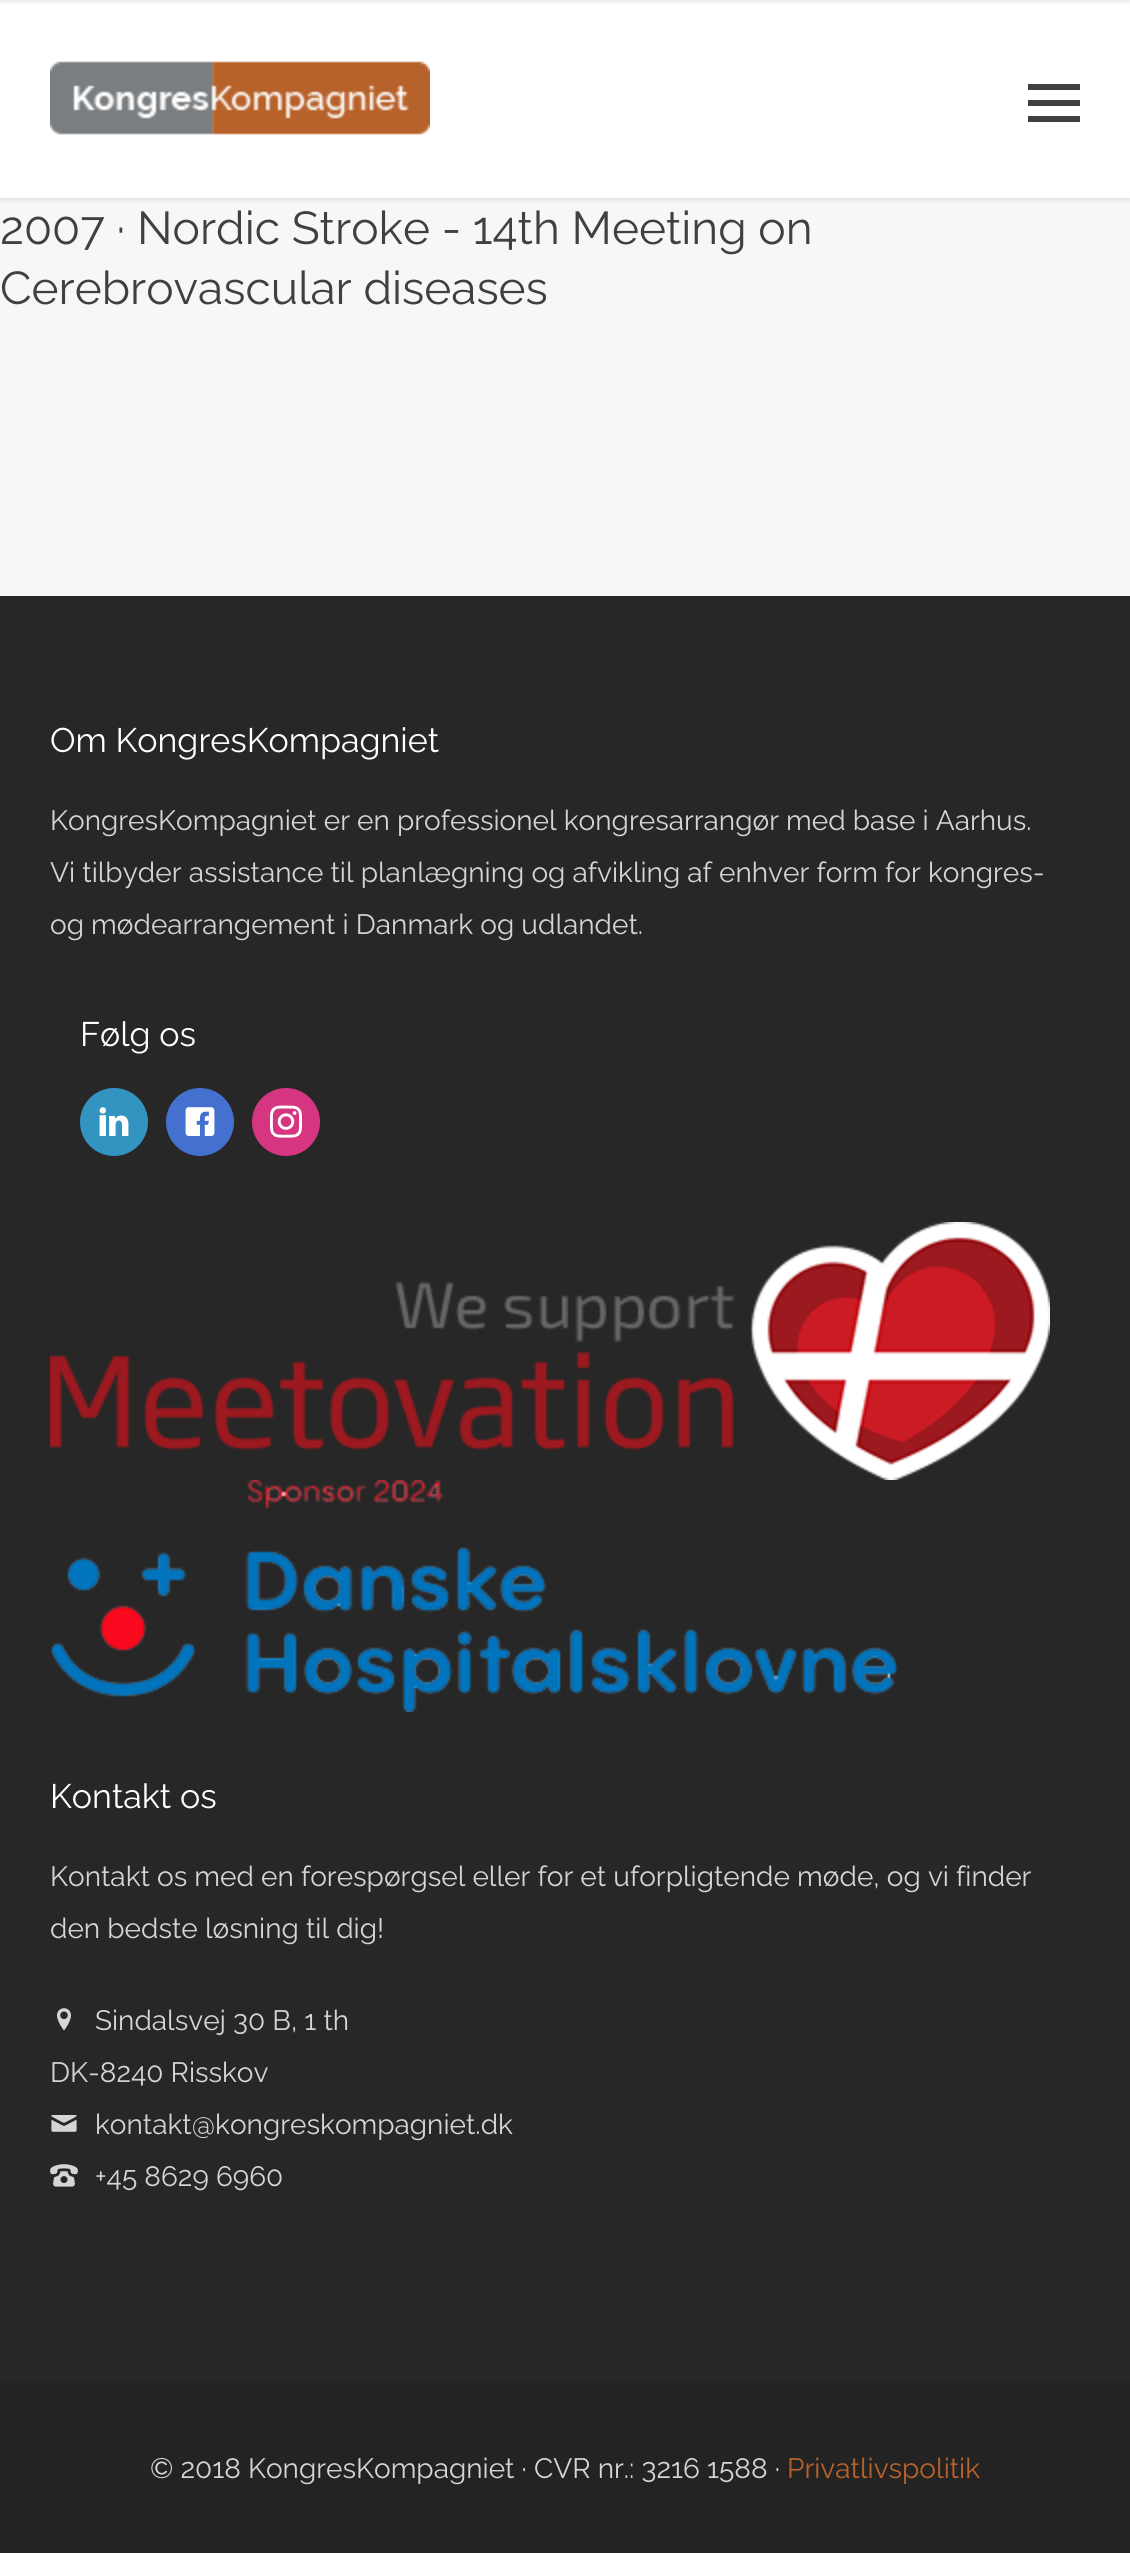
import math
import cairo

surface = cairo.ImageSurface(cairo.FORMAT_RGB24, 1130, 2553)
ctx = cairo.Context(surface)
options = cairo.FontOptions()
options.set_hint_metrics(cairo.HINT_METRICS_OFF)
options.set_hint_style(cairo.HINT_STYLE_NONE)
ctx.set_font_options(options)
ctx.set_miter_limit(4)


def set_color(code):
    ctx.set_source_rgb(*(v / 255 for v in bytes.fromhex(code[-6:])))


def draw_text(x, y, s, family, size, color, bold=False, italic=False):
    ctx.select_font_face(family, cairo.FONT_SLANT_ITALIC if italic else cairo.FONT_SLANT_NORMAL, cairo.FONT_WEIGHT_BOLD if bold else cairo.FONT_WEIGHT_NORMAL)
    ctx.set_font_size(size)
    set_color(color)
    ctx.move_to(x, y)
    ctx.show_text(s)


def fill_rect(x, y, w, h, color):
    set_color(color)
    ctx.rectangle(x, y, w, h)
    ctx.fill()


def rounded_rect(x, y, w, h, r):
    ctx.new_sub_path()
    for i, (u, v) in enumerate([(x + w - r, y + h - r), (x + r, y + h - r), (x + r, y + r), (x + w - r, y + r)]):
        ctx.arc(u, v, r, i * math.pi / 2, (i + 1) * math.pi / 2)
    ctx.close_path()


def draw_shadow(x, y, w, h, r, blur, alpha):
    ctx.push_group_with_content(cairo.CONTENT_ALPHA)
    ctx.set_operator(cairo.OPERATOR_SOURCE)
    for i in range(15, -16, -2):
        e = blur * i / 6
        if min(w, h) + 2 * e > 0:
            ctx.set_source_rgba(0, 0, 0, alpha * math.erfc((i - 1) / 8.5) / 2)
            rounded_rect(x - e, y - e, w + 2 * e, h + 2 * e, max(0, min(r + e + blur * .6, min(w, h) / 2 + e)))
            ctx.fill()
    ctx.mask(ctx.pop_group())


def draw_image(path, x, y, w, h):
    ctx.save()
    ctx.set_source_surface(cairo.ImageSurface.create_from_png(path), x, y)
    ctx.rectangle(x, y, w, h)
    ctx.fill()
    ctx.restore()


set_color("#f6f7f8")
ctx.paint()
set_color("#000000")
draw_shadow(0, 2, 1130, 198, 0, 2, 0.1)
fill_rect(0, 0, 1130, 198, "#ffffff")
set_color("#000000")
draw_shadow(0, -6, 1130, 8, 0, 2, 0.1)
draw_image("assets/img1.png", 50, 61, 380, 74)
fill_rect(1028, 100, 52, 6, "#404040")
fill_rect(1028, 84, 52, 6, "#404040")
fill_rect(1028, 116, 52, 6, "#404040")
draw_text(0, 244, "2007 · Nordic Stroke - 14th Meeting on", "Raleway", 46, "#404040")
draw_text(0, 304, "Cerebrovascular diseases", "Raleway", 46, "#404040")
fill_rect(0, 596, 1130, 1786, "#272727")
draw_text(50, 752, "Om KongresKompagniet", "Raleway", 34, "#ffffff")
draw_text(50, 830, "KongresKompagniet er en professionel kongresarrangør med base i Aarhus.", "Raleway", 28, "#d5d5d5")
draw_text(50, 882, "Vi tilbyder assistance til planlægning og afvikling af enhver form for kongres-", "Raleway", 28, "#d5d5d5")
draw_text(50, 934, "og mødearrangement i Danmark og udlandet.", "Raleway", 28, "#d5d5d5")
draw_text(80, 1046, "Følg os", "Raleway", 34, "#ffffff")
set_color("#3393c1")
ctx.new_path()
ctx.arc(114, 1122, 34, 0, 2 * math.pi)
ctx.fill()
draw_image("assets/img2.png", 99, 1107, 30, 29)
set_color("#4470cf")
ctx.arc(200, 1122, 34, 0, 2 * math.pi)
ctx.fill()
draw_image("assets/img3.png", 185, 1107, 30, 29)
set_color("#d53581")
ctx.arc(286, 1122, 34, 0, 2 * math.pi)
ctx.fill()
draw_image("assets/img4.png", 270, 1105, 32, 33)
draw_image("assets/img5.png", 50, 1222, 1000, 258)
draw_image("assets/img6.png", 50, 1480, 848, 232)
draw_text(50, 1808, "Kontakt os", "Raleway", 34, "#ffffff")
draw_text(50, 1886, "Kontakt os med en forespørgsel eller for et uforpligtende møde, og vi finder", "Raleway", 28, "#d5d5d5")
draw_text(50, 1938, "den bedste løsning til dig!", "Raleway", 28, "#d5d5d5")
draw_image("assets/img7.png", 57, 2008, 14, 23)
draw_text(95, 2030, "Sindalsvej 30 B, 1 th", "Raleway", 28, "#d5d5d5")
draw_text(50, 2082, "DK-8240 Risskov", "Raleway", 28, "#d5d5d5")
draw_image("assets/img8.png", 51, 2115, 26, 17)
draw_text(95, 2134, "kontakt@kongreskompagniet.dk", "Raleway", 28, "#d5d5d5")
draw_image("assets/img9.png", 50, 2164, 28, 23)
draw_text(95, 2186, "+45 8629 6960", "Raleway", 28, "#d5d5d5")
fill_rect(0, 2382, 1130, 171, "#232323")
draw_text(150, 2478, "© 2018 KongresKompagniet · CVR nr.: 3216 1588 ·", "Raleway", 28, "#d5d5d5")
draw_text(787, 2478, "Privatlivspolitik", "Raleway", 28, "#b8622b")
surface.write_to_png("output.png")
